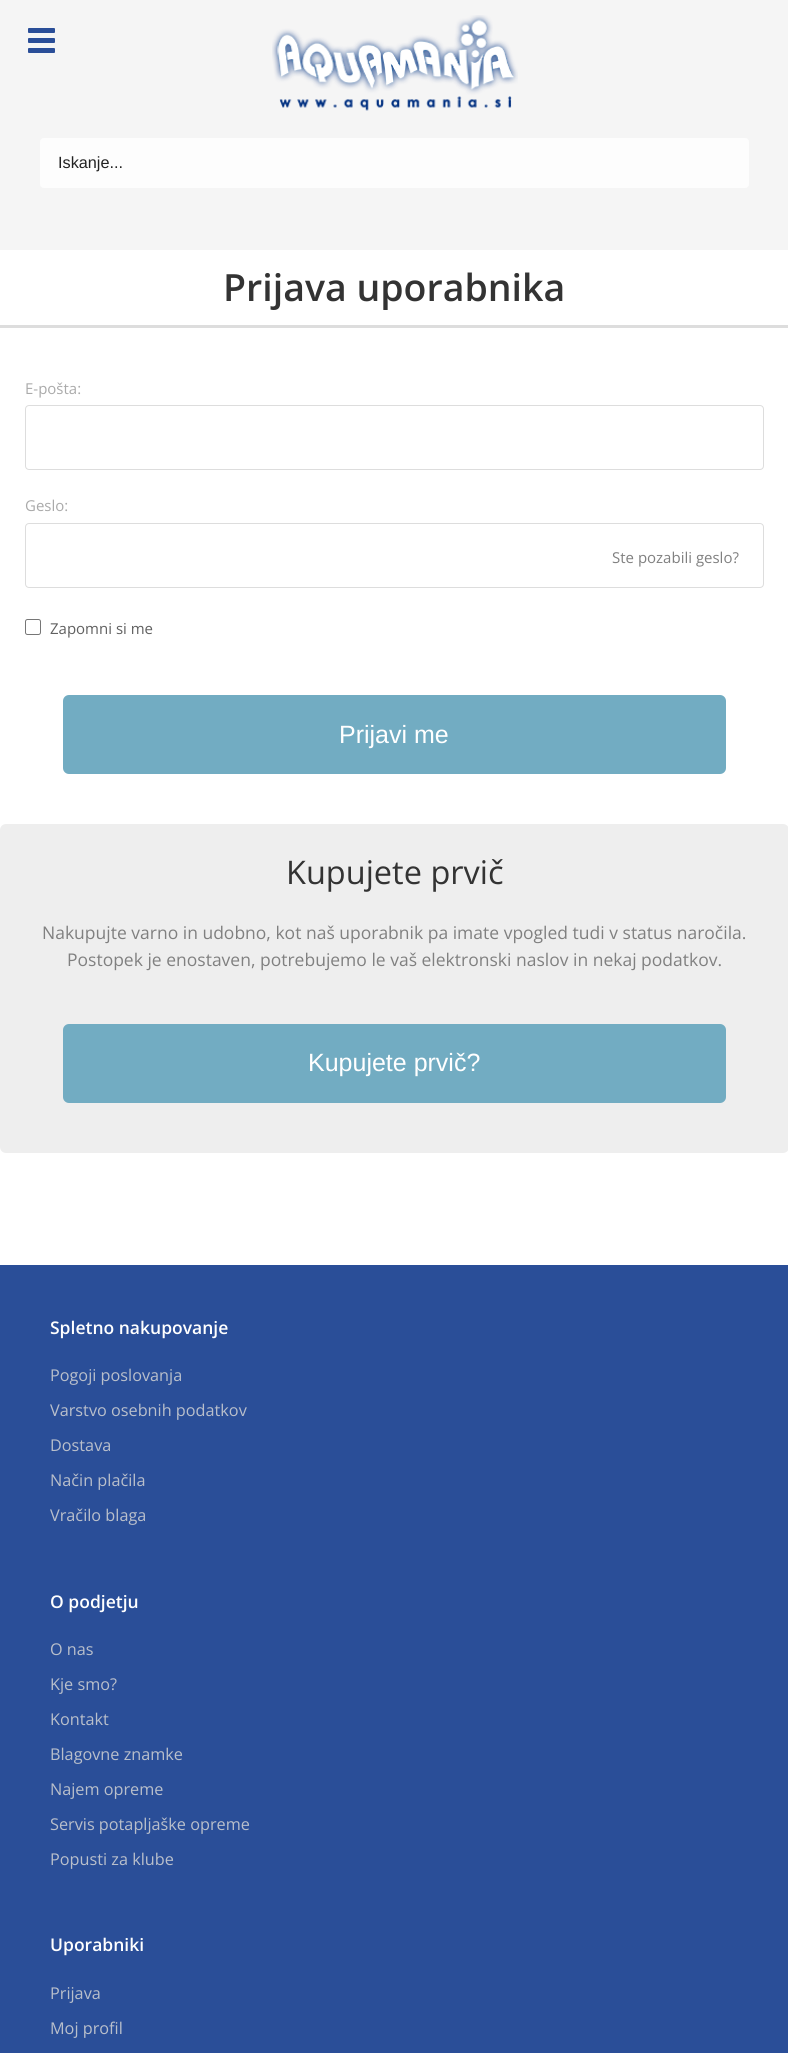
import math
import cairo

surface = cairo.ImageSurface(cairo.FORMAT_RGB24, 788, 2053)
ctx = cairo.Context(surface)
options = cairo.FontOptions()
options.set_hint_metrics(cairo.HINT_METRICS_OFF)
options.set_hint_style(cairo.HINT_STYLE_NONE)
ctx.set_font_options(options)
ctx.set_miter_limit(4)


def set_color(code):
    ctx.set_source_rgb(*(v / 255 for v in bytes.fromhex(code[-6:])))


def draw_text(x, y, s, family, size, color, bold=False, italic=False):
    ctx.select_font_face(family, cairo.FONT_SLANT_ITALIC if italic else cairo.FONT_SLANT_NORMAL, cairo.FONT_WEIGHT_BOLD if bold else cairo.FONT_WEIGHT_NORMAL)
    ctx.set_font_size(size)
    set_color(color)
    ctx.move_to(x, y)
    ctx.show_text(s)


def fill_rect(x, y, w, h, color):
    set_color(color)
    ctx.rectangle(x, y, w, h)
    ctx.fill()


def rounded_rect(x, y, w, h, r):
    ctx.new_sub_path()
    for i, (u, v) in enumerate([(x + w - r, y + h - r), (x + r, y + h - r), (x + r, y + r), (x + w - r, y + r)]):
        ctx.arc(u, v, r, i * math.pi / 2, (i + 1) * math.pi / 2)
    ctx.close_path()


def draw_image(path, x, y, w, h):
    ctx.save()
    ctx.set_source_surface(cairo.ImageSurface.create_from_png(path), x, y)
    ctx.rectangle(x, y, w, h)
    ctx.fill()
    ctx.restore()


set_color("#ffffff")
ctx.paint()
fill_rect(0, 0, 788, 250, "#f5f5f5")
set_color("#2a4e98")
rounded_rect(28, 28, 27, 5, 1)
ctx.fill()
rounded_rect(28, 38, 27, 5, 1)
ctx.fill()
rounded_rect(28, 48, 27, 5, 1)
ctx.fill()
draw_image("assets/img1.png", 272, 15, 246, 96)
set_color("#fdfdfd")
rounded_rect(40, 138, 709, 50, 4)
ctx.fill()
draw_text(58, 168, "Iskanje...", "Liberation Sans", 16.25, "#222222")
fill_rect(0, 325, 788, 3, "#dddddd")
draw_text(223, 301, "Prijava uporabnika", "Open Sans SemiBold", 37.5, "#333333")
draw_text(25, 394, "E-pošta:", "Open Sans", 15, "#aaaaaa")
rounded_rect(25.5, 405.5, 738, 64, 3.5)
set_color("#dddddd")
ctx.set_line_width(1)
ctx.stroke()
draw_text(25, 511, "Geslo:", "Open Sans", 15, "#aaaaaa")
rounded_rect(25.5, 523.5, 738, 64, 3.5)
set_color("#dddddd")
ctx.stroke()
draw_text(612, 563, "Ste pozabili geslo?", "Open Sans", 15, "#808080")
rounded_rect(25.5, 619.5, 15, 15, 2)
set_color("#767676")
ctx.stroke()
draw_text(50, 634, "Zapomni si me", "Open Sans", 15, "#606060")
set_color("#72acc2")
rounded_rect(63, 695, 663, 79, 6)
ctx.fill()
draw_text(339, 743, "Prijavi me", "Liberation Sans", 25, "#ffffff")
set_color("#eeeeee")
rounded_rect(0, 824, 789, 329, 6)
ctx.fill()
draw_text(286, 884, "Kupujete prvič", "Open Sans", 32.5, "#333333")
draw_text(42, 939, "Nakupujte varno in udobno, kot naš uporabnik pa imate vpogled tudi v status naročila.", "Open Sans", 17.5, "#808080")
draw_text(67, 966, "Postopek je enostaven, potrebujemo le vaš elektronski naslov in nekaj podatkov.", "Open Sans", 17.5, "#808080")
set_color("#72acc2")
rounded_rect(63, 1024, 663, 79, 6)
ctx.fill()
draw_text(308, 1071, "Kupujete prvič?", "Liberation Sans", 25, "#ffffff")
fill_rect(0, 1265, 788, 788, "#2a4e98")
draw_text(50, 1334, "Spletno nakupovanje", "Open Sans SemiBold", 17.5, "#ffffff")
draw_text(50, 1381, "Pogoji poslovanja", "Open Sans", 16.25, "#b9bfcb")
draw_text(50, 1416, "Varstvo osebnih podatkov", "Open Sans", 16.25, "#b9bfcb")
draw_text(50, 1451, "Dostava", "Open Sans", 16.25, "#b9bfcb")
draw_text(50, 1486, "Način plačila", "Open Sans", 16.25, "#b9bfcb")
draw_text(50, 1521, "Vračilo blaga", "Open Sans", 16.25, "#b9bfcb")
draw_text(50, 1608, "O podjetju", "Open Sans SemiBold", 17.5, "#ffffff")
draw_text(50, 1655, "O nas", "Open Sans", 16.25, "#b9bfcb")
draw_text(50, 1690, "Kje smo?", "Open Sans", 16.25, "#b9bfcb")
draw_text(50, 1725, "Kontakt", "Open Sans", 16.25, "#b9bfcb")
draw_text(50, 1760, "Blagovne znamke", "Open Sans", 16.25, "#b9bfcb")
draw_text(50, 1795, "Najem opreme", "Open Sans", 16.25, "#b9bfcb")
draw_text(50, 1830, "Servis potapljaške opreme", "Open Sans", 16.25, "#b9bfcb")
draw_text(50, 1865, "Popusti za klube", "Open Sans", 16.25, "#b9bfcb")
draw_text(50, 1951, "Uporabniki", "Open Sans SemiBold", 17.5, "#ffffff")
draw_text(50, 1999, "Prijava", "Open Sans", 16.25, "#b9bfcb")
draw_text(50, 2034, "Moj profil", "Open Sans", 16.25, "#b9bfcb")
surface.write_to_png("output.png")
